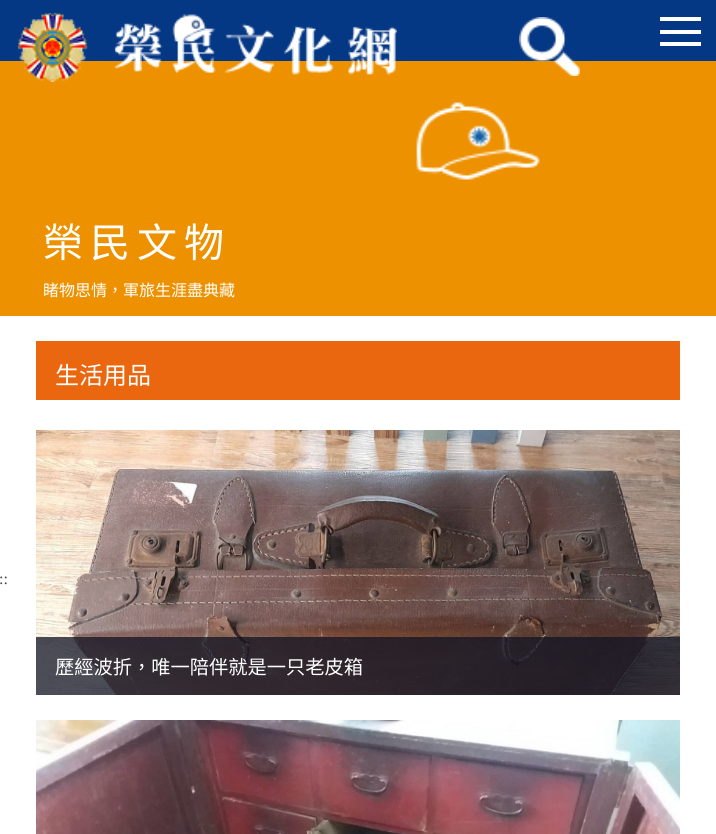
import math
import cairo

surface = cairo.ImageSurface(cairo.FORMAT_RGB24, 716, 834)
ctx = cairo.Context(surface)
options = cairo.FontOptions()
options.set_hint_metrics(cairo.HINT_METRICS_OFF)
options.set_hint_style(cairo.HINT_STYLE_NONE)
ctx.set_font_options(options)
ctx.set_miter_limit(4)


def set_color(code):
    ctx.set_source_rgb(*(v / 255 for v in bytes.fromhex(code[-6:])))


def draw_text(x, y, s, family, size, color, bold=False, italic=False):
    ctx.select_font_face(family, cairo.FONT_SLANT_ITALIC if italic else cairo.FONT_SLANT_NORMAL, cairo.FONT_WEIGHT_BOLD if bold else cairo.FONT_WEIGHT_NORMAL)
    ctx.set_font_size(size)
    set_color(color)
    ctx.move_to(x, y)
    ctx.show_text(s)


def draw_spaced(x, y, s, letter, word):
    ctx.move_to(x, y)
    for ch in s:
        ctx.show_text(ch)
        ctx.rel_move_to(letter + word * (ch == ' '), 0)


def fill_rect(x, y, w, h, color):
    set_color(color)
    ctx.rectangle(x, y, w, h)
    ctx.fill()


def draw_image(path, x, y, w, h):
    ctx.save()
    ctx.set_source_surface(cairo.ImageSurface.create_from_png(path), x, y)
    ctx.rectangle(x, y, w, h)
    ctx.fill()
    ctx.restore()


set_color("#ffffff")
ctx.paint()
fill_rect(0, 0, 716, 61, "#043784")
fill_rect(0, 61, 716, 255, "#ed9100")
draw_image("assets/img1.png", 18, 13, 379, 69)
draw_image("assets/img2.png", 519, 17, 61, 59)
draw_image("assets/img3.png", 660, 17, 41, 29)
draw_image("assets/img4.png", 416, 102, 124, 78)
ctx.select_font_face("Noto Sans CJK TC")
ctx.set_font_size(40)
set_color("#ffffff")
draw_spaced(43, 257, "榮民文物", 7, 0)
draw_text(43, 296, "睹物思情，軍旅生涯盡典藏", "Noto Sans CJK TC", 16, "#ffffff")
fill_rect(36, 341, 644, 59, "#ea6710")
draw_text(55, 384, "生活用品", "Noto Sans CJK TC", 24, "#ffffff")
draw_text(-1, 584, "::", "Liberation Serif", 16, "#454545")
draw_image("assets/img5.png", 36, 430, 644, 265)
ctx.set_source_rgba(0.063, 0.078, 0.137, 0.75)
ctx.rectangle(36, 637, 644, 58)
ctx.fill()
draw_text(55, 674, "歷經波折，唯一陪伴就是一只老皮箱", "Noto Sans CJK TC", 19.25, "#ffffff")
draw_image("assets/img6.png", 36, 720, 644, 114)
surface.write_to_png("output.png")
